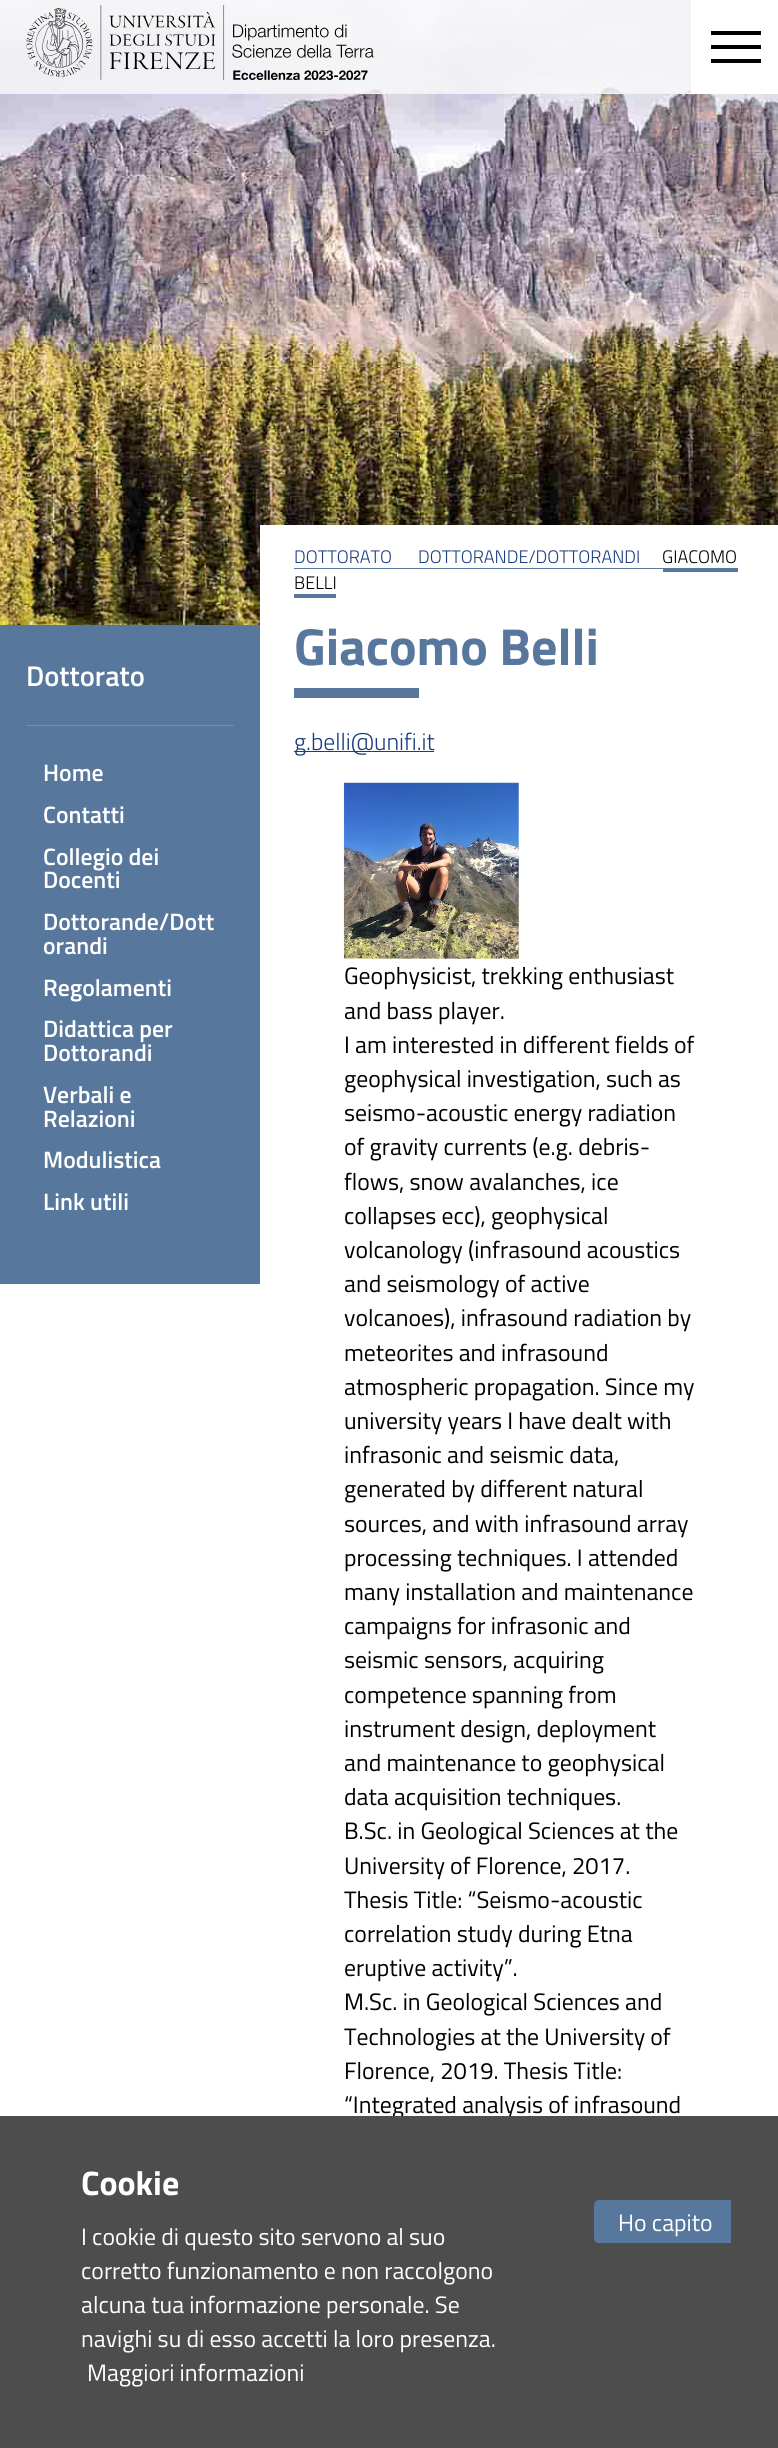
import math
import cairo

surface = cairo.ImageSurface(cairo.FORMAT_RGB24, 778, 2448)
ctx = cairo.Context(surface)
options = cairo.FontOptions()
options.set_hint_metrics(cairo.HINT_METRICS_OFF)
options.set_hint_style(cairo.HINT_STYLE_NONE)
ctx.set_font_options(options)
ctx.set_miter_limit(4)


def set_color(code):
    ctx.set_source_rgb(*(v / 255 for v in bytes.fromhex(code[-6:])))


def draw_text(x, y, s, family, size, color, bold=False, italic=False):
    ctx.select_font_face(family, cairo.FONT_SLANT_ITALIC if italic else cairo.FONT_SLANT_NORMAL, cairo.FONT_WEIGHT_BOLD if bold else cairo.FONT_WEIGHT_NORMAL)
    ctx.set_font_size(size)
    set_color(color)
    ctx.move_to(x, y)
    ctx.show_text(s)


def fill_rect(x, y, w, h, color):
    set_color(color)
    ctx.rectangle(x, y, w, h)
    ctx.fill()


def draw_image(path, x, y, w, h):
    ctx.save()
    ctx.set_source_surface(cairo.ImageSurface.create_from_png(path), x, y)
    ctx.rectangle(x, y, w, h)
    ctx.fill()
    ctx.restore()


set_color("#ffffff")
ctx.paint()
draw_image("assets/img2.png", 0, 0, 778, 625)
ctx.set_source_rgba(0.98, 0.98, 0.98, 0.8)
ctx.rectangle(0, 0, 691, 93)
ctx.fill()
fill_rect(0, 93, 691, 1, "#f0f0f0")
draw_image("assets/img1.png", 26, 5, 348, 75)
fill_rect(691, 0, 87, 94, "#ffffff")
fill_rect(711, 31, 50, 4, "#000000")
fill_rect(711, 45, 50, 4, "#000000")
fill_rect(711, 59, 50, 4, "#000000")
fill_rect(0, 625, 260, 659, "#58779d")
fill_rect(26, 725, 208, 1, "#758ca9")
draw_text(26, 686, "Dottorato", "Titillium Web SemiBold", 28.5, "#ffffff")
draw_text(43, 781, "Home", "Titillium Web SemiBold", 23.75, "#ffffff")
draw_text(43, 823, "Contatti", "Titillium Web SemiBold", 23.75, "#ffffff")
draw_text(43, 865, "Collegio dei", "Titillium Web SemiBold", 23.75, "#ffffff")
draw_text(43, 888, "Docenti", "Titillium Web SemiBold", 23.75, "#ffffff")
draw_text(43, 930, "Dottorande/Dott", "Titillium Web SemiBold", 23.75, "#ffffff")
draw_text(43, 954, "orandi", "Titillium Web SemiBold", 23.75, "#ffffff")
draw_text(43, 996, "Regolamenti", "Titillium Web SemiBold", 23.75, "#ffffff")
draw_text(43, 1037, "Didattica per", "Titillium Web SemiBold", 23.75, "#ffffff")
draw_text(43, 1061, "Dottorandi", "Titillium Web SemiBold", 23.75, "#ffffff")
draw_text(43, 1103, "Verbali e", "Titillium Web SemiBold", 23.75, "#ffffff")
draw_text(43, 1127, "Relazioni", "Titillium Web SemiBold", 23.75, "#ffffff")
draw_text(43, 1168, "Modulistica", "Titillium Web SemiBold", 23.75, "#ffffff")
draw_text(43, 1210, "Link utili", "Titillium Web SemiBold", 23.75, "#ffffff")
fill_rect(260, 525, 518, 100, "#ffffff")
draw_text(294, 563, "DOTTORATO", "Titillium Web Light", 18.1, "#1a3d7f")
fill_rect(294, 568, 372, 1, "#58779d")
draw_text(418, 563, "DOTTORANDE/DOTTORANDI", "Titillium Web Light", 18.1, "#1a3d7f")
draw_text(662, 563, "GIACOMO", "Titillium Web Light", 18.1, "#000000")
fill_rect(663, 568, 75, 4, "#58779d")
draw_text(294, 589, "BELLI", "Titillium Web Light", 18.1, "#000000")
fill_rect(294, 594, 42, 4, "#58779d")
draw_text(294, 665, "Giacomo Belli", "Titillium Web", 52, "#58779d", bold=True)
fill_rect(294, 688, 125, 10, "#58779d")
fill_rect(294, 751, 140, 1, "#1a3d7f")
draw_text(294, 750, "g.belli@unifi.it", "Titillium Web Light", 23.75, "#1a3d7f")
draw_image("assets/img3.png", 343, 782, 176, 177)
draw_text(344, 984, "Geophysicist, trekking enthusiast", "Titillium Web", 23.75, "#000000")
draw_text(344, 1019, "and bass player.", "Titillium Web", 23.75, "#000000")
draw_text(344, 1053, "I am interested in different fields of", "Titillium Web", 23.75, "#000000")
draw_text(344, 1087, "geophysical investigation, such as", "Titillium Web", 23.75, "#000000")
draw_text(344, 1121, "seismo-acoustic energy radiation", "Titillium Web", 23.75, "#000000")
draw_text(344, 1155, "of gravity currents (e.g. debris-", "Titillium Web", 23.75, "#000000")
draw_text(344, 1190, "flows, snow avalanches, ice", "Titillium Web", 23.75, "#000000")
draw_text(344, 1224, "collapses ecc), geophysical", "Titillium Web", 23.75, "#000000")
draw_text(344, 1258, "volcanology (infrasound acoustics", "Titillium Web", 23.75, "#000000")
draw_text(344, 1292, "and seismology of active", "Titillium Web", 23.75, "#000000")
draw_text(344, 1326, "volcanoes), infrasound radiation by", "Titillium Web", 23.75, "#000000")
draw_text(344, 1361, "meteorites and infrasound", "Titillium Web", 23.75, "#000000")
draw_text(344, 1395, "atmospheric propagation. Since my", "Titillium Web", 23.75, "#000000")
draw_text(344, 1429, "university years I have dealt with", "Titillium Web", 23.75, "#000000")
draw_text(344, 1463, "infrasonic and seismic data,", "Titillium Web", 23.75, "#000000")
draw_text(344, 1497, "generated by different natural", "Titillium Web", 23.75, "#000000")
draw_text(344, 1532, "sources, and with infrasound array", "Titillium Web", 23.75, "#000000")
draw_text(344, 1566, "processing techniques. I attended", "Titillium Web", 23.75, "#000000")
draw_text(344, 1600, "many installation and maintenance", "Titillium Web", 23.75, "#000000")
draw_text(344, 1634, "campaigns for infrasonic and", "Titillium Web", 23.75, "#000000")
draw_text(344, 1668, "seismic sensors, acquiring", "Titillium Web", 23.75, "#000000")
draw_text(344, 1703, "competence spanning from", "Titillium Web", 23.75, "#000000")
draw_text(344, 1737, "instrument design, deployment", "Titillium Web", 23.75, "#000000")
draw_text(344, 1771, "and maintenance to geophysical", "Titillium Web", 23.75, "#000000")
draw_text(344, 1805, "data acquisition techniques.", "Titillium Web", 23.75, "#000000")
draw_text(344, 1839, "B.Sc. in Geological Sciences at the", "Titillium Web", 23.75, "#000000")
draw_text(344, 1874, "University of Florence, 2017.", "Titillium Web", 23.75, "#000000")
draw_text(344, 1908, "Thesis Title: “Seismo-acoustic", "Titillium Web", 23.75, "#000000")
draw_text(344, 1942, "correlation study during Etna", "Titillium Web", 23.75, "#000000")
draw_text(344, 1976, "eruptive activity”.", "Titillium Web", 23.75, "#000000")
draw_text(344, 2010, "M.Sc. in Geological Sciences and", "Titillium Web", 23.75, "#000000")
draw_text(344, 2045, "Technologies at the University of", "Titillium Web", 23.75, "#000000")
draw_text(344, 2079, "Florence, 2019. Thesis Title:", "Titillium Web", 23.75, "#000000")
draw_text(344, 2113, "“Integrated analysis of infrasound", "Titillium Web", 23.75, "#000000")
fill_rect(0, 2116, 778, 332, "#4d4d4d")
draw_text(81, 2195, "Cookie", "Titillium Web", 34, "#ffffff", bold=True)
draw_text(81, 2245, "I cookie di questo sito servono al suo", "Titillium Web", 23.75, "#ffffff")
draw_text(81, 2279, "corretto funzionamento e non raccolgono", "Titillium Web", 23.75, "#ffffff")
draw_text(81, 2313, "alcuna tua informazione personale. Se", "Titillium Web", 23.75, "#ffffff")
draw_text(81, 2347, "navighi su di esso accetti la loro presenza.", "Titillium Web", 23.75, "#ffffff")
draw_text(87, 2381, "Maggiori informazioni", "Titillium Web", 23.75, "#ffffff")
set_color("#58779d")
ctx.new_path()
ctx.move_to(599, 2200)
ctx.line_to(731, 2200)
ctx.line_to(731, 2243)
ctx.line_to(599, 2243)
ctx.curve_to(596, 2243, 594, 2241, 594, 2238)
ctx.line_to(594, 2205)
ctx.curve_to(594, 2202, 596, 2200, 599, 2200)
ctx.close_path()
ctx.fill()
draw_text(618, 2231, "Ho capito", "Titillium Web", 23.75, "#ffffff")
surface.write_to_png("output.png")
